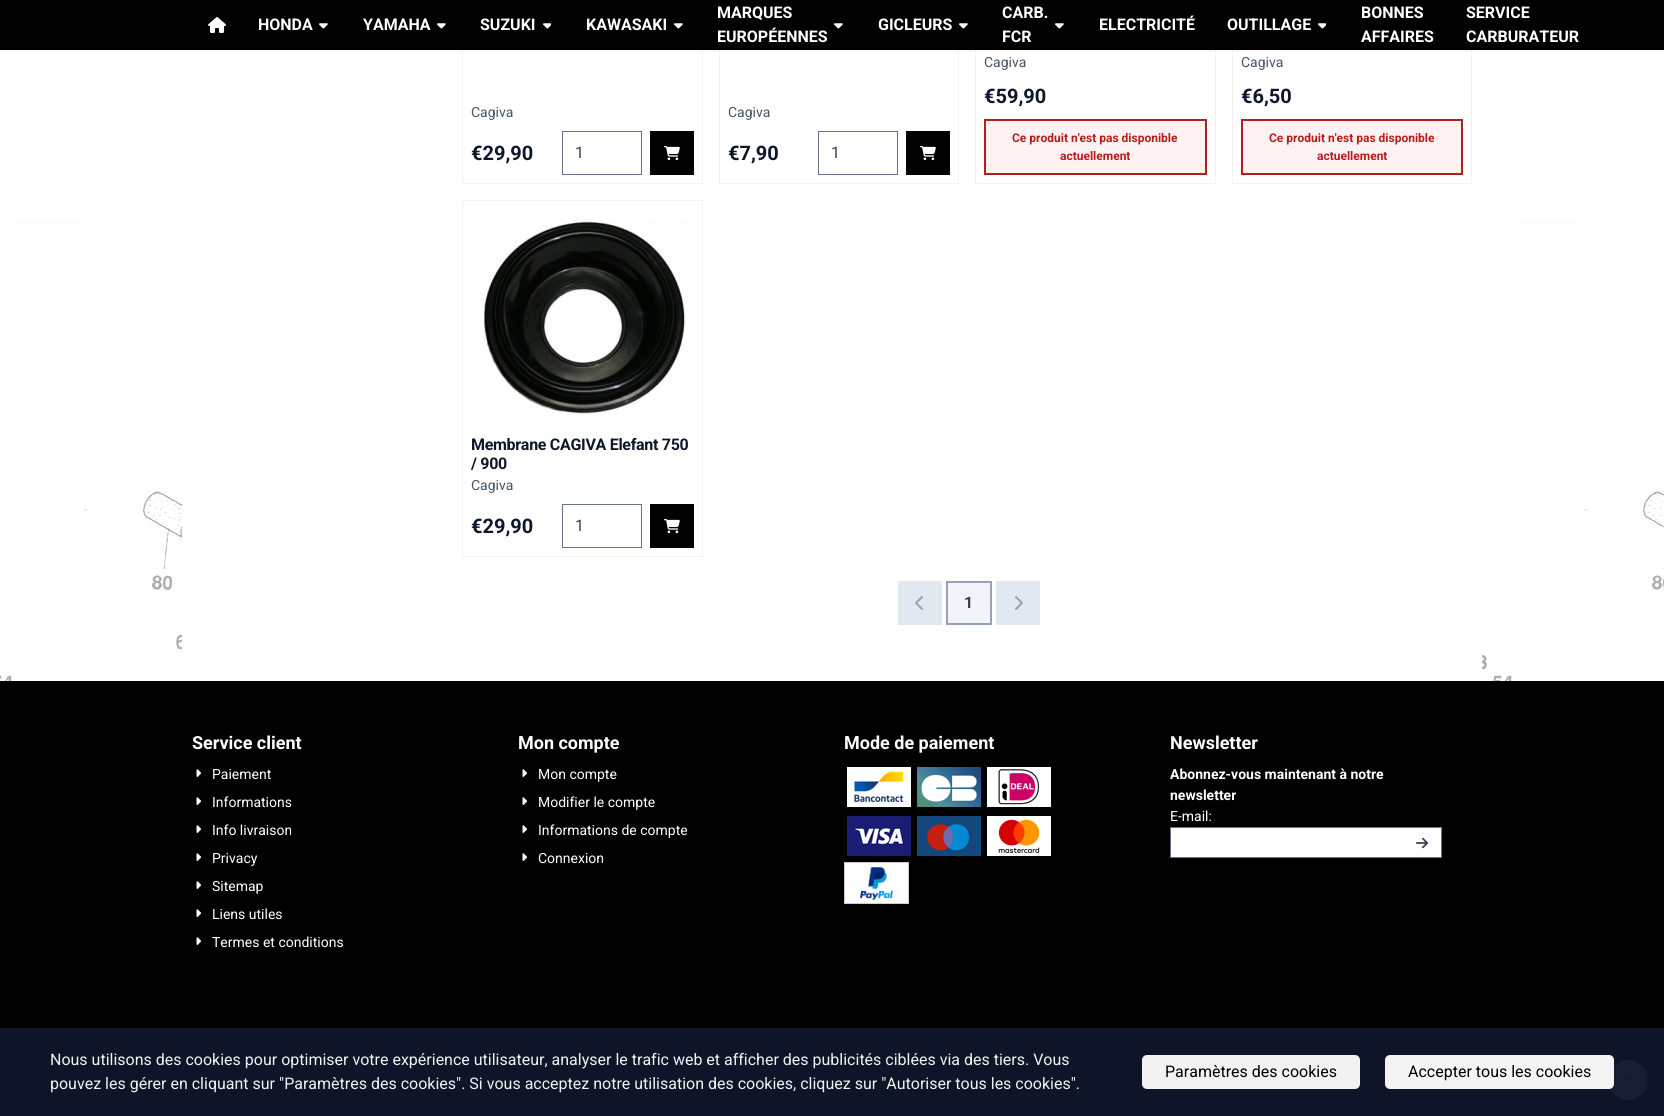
import math
import cairo

surface = cairo.ImageSurface(cairo.FORMAT_RGB24, 1664, 1116)
ctx = cairo.Context(surface)
options = cairo.FontOptions()
options.set_hint_metrics(cairo.HINT_METRICS_OFF)
options.set_hint_style(cairo.HINT_STYLE_NONE)
ctx.set_font_options(options)
ctx.set_miter_limit(4)


def set_color(code):
    ctx.set_source_rgb(*(v / 255 for v in bytes.fromhex(code[-6:])))


def draw_text(x, y, s, family, size, color, bold=False, italic=False):
    ctx.select_font_face(family, cairo.FONT_SLANT_ITALIC if italic else cairo.FONT_SLANT_NORMAL, cairo.FONT_WEIGHT_BOLD if bold else cairo.FONT_WEIGHT_NORMAL)
    ctx.set_font_size(size)
    set_color(color)
    ctx.move_to(x, y)
    ctx.show_text(s)


def draw_spaced(x, y, s, letter, word):
    ctx.move_to(x, y)
    for ch in s:
        ctx.show_text(ch)
        ctx.rel_move_to(letter + word * (ch == ' '), 0)


def fill_rect(x, y, w, h, color):
    set_color(color)
    ctx.rectangle(x, y, w, h)
    ctx.fill()


def rounded_rect(x, y, w, h, r):
    ctx.new_sub_path()
    for i, (u, v) in enumerate([(x + w - r, y + h - r), (x + r, y + h - r), (x + r, y + r), (x + w - r, y + r)]):
        ctx.arc(u, v, r, i * math.pi / 2, (i + 1) * math.pi / 2)
    ctx.close_path()


def draw_shadow(x, y, w, h, r, blur, alpha):
    ctx.push_group_with_content(cairo.CONTENT_ALPHA)
    ctx.set_operator(cairo.OPERATOR_SOURCE)
    for i in range(15, -16, -2):
        e = blur * i / 6
        if min(w, h) + 2 * e > 0:
            ctx.set_source_rgba(0, 0, 0, alpha * math.erfc((i - 1) / 8.5) / 2)
            rounded_rect(x - e, y - e, w + 2 * e, h + 2 * e, max(0, min(r + e + blur * .6, min(w, h) / 2 + e)))
            ctx.fill()
    ctx.mask(ctx.pop_group())


def draw_image(path, x, y, w, h):
    ctx.save()
    ctx.set_source_surface(cairo.ImageSurface.create_from_png(path), x, y)
    ctx.rectangle(x, y, w, h)
    ctx.fill()
    ctx.restore()


set_color("#ffffff")
ctx.paint()
draw_image("assets/img1.png", 0, 79, 1664, 602)
fill_rect(182, 79, 1300, 602, "#ffffff")
ctx.rectangle(462.5, -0.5, 240, 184)
set_color("#f2f2f2")
ctx.set_line_width(1)
ctx.stroke()
ctx.rectangle(719.5, -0.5, 239, 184)
ctx.stroke()
ctx.rectangle(975.5, -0.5, 240, 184)
ctx.stroke()
ctx.rectangle(1232.5, -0.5, 239, 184)
ctx.stroke()
set_color("#000000")
draw_shadow(0, 1, 1664, 50, 0, 1, 0.05)
fill_rect(0, 0, 1664, 50, "#000000")
draw_image("assets/img2.png", 208, 17, 18, 16)
draw_text(258, 30, "HONDA", "Roboto", 16, "#ffffff", bold=True)
draw_image("assets/img3.png", 319, 23, 9, 6)
draw_text(363, 30, "YAMAHA", "Roboto", 16, "#ffffff", bold=True)
draw_image("assets/img3.png", 437, 23, 9, 6)
draw_text(480, 30, "SUZUKI", "Roboto", 16, "#ffffff", bold=True)
draw_image("assets/img4.png", 543, 23, 8, 6)
draw_text(586, 30, "KAWASAKI", "Roboto", 16, "#ffffff", bold=True)
draw_image("assets/img3.png", 674, 23, 9, 6)
draw_text(717, 18, "MARQUES", "Roboto", 16, "#ffffff", bold=True)
draw_text(717, 42, "EUROPÉENNES", "Roboto", 16, "#ffffff", bold=True)
draw_image("assets/img3.png", 834, 23, 9, 6)
draw_text(878, 30, "GICLEURS", "Roboto", 16, "#ffffff", bold=True)
draw_image("assets/img3.png", 959, 23, 9, 6)
draw_text(1002, 18, "CARB.", "Roboto", 16, "#ffffff", bold=True)
draw_text(1002, 42, "FCR", "Roboto", 16, "#ffffff", bold=True)
draw_image("assets/img3.png", 1055, 23, 9, 6)
draw_text(1099, 30, "ELECTRICITÉ", "Roboto", 16, "#ffffff", bold=True)
draw_text(1227, 30, "OUTILLAGE", "Roboto", 16, "#ffffff", bold=True)
draw_image("assets/img4.png", 1318, 23, 8, 6)
draw_text(1361, 18, "BONNES", "Roboto", 16, "#ffffff", bold=True)
draw_text(1361, 42, "AFFAIRES", "Roboto", 16, "#ffffff", bold=True)
draw_text(1466, 18, "SERVICE", "Roboto", 16, "#ffffff", bold=True)
draw_text(1466, 42, "CARBURATEUR", "Roboto", 16, "#ffffff", bold=True)
draw_text(471, 117, "Cagiva", "Roboto", 14, "#475569")
draw_text(471, 160, "€29,90", "Roboto", 20, "#0f172a", bold=True)
ctx.rectangle(562.5, 131.5, 79, 43)
set_color("#64748b")
ctx.stroke()
draw_text(575, 158, "1", "Roboto", 16, "#334155")
fill_rect(650, 131, 44, 44, "#000000")
draw_image("assets/img5.png", 664, 146, 16, 14)
draw_text(728, 117, "Cagiva", "Roboto", 14, "#475569")
draw_text(728, 160, "€7,90", "Roboto", 20, "#0f172a", bold=True)
ctx.rectangle(818.5, 131.5, 79, 43)
set_color("#64748b")
ctx.stroke()
draw_text(831, 158, "1", "Roboto", 16, "#334155")
fill_rect(906, 131, 44, 44, "#000000")
draw_image("assets/img5.png", 920, 146, 16, 14)
draw_text(984, 67, "Cagiva", "Roboto", 14, "#475569")
draw_text(984, 103, "€59,90", "Roboto", 20, "#0f172a", bold=True)
set_color("#fef2f2")
ctx.rectangle(985, 120, 221, 54)
ctx.fill_preserve()
set_color("#b91c1c")
ctx.set_line_width(2)
ctx.stroke()
draw_text(1012, 142, "Ce produit n'est pas disponible", "Roboto", 12, "#b91c1c", bold=True)
draw_text(1060, 160, "actuellement", "Roboto", 12, "#b91c1c", bold=True)
draw_text(1241, 67, "Cagiva", "Roboto", 14, "#475569")
draw_text(1241, 103, "€6,50", "Roboto", 20, "#0f172a", bold=True)
set_color("#fef2f2")
ctx.rectangle(1242, 120, 220, 54)
ctx.fill_preserve()
set_color("#b91c1c")
ctx.stroke()
draw_text(1269, 142, "Ce produit n'est pas disponible", "Roboto", 12, "#b91c1c", bold=True)
draw_text(1317, 160, "actuellement", "Roboto", 12, "#b91c1c", bold=True)
ctx.rectangle(462.5, 200.5, 240, 356)
set_color("#f2f2f2")
ctx.set_line_width(1)
ctx.stroke()
draw_image("assets/img6.png", 483, 219, 207, 196)
ctx.set_font_size(16)
set_color("#0f172a")
draw_spaced(471, 450, "Membrane CAGIVA Elefant 750", -0.3, 0)
draw_spaced(471, 469, "/ 900", -0.3, 0)
draw_text(471, 490, "Cagiva", "Roboto", 14, "#475569")
draw_text(471, 533, "€29,90", "Roboto", 20, "#0f172a", bold=True)
ctx.rectangle(562.5, 504.5, 79, 43)
set_color("#64748b")
ctx.stroke()
draw_text(575, 531, "1", "Roboto", 16, "#334155")
fill_rect(650, 504, 44, 44, "#000000")
draw_image("assets/img7.png", 664, 519, 16, 15)
fill_rect(898, 581, 44, 44, "#e2e8f0")
draw_image("assets/img8.png", 915, 596, 8, 14)
set_color("#f1f5f9")
ctx.rectangle(947, 582, 44, 42)
ctx.fill_preserve()
set_color("#94a3b8")
ctx.set_line_width(2)
ctx.stroke()
draw_text(964, 608, "1", "Roboto", 16, "#334155", bold=True)
fill_rect(996, 581, 44, 44, "#e2e8f0")
draw_image("assets/img9.png", 1015, 596, 8, 14)
fill_rect(0, 681, 1664, 435, "#000000")
draw_text(192, 749, "Service client", "Roboto", 18, "#ffffff", bold=True)
draw_image("assets/img10.png", 196, 769, 5, 8)
draw_text(212, 779, "Paiement", "Roboto", 14, "#ffffff")
draw_image("assets/img10.png", 196, 797, 5, 8)
draw_text(212, 807, "Informations", "Roboto", 14, "#ffffff")
draw_image("assets/img10.png", 196, 825, 5, 8)
draw_text(212, 835, "Info livraison", "Roboto", 14, "#ffffff")
draw_image("assets/img10.png", 196, 853, 5, 8)
draw_text(212, 863, "Privacy", "Roboto", 14, "#ffffff")
draw_image("assets/img10.png", 196, 881, 5, 8)
draw_text(212, 891, "Sitemap", "Roboto", 14, "#ffffff")
draw_image("assets/img10.png", 196, 909, 5, 8)
draw_text(212, 919, "Liens utiles", "Roboto", 14, "#ffffff")
draw_image("assets/img10.png", 196, 937, 5, 8)
draw_text(212, 947, "Termes et conditions", "Roboto", 14, "#ffffff")
draw_text(518, 749, "Mon compte", "Roboto", 18, "#ffffff", bold=True)
draw_image("assets/img10.png", 522, 769, 5, 8)
draw_text(538, 779, "Mon compte", "Roboto", 14, "#ffffff")
draw_image("assets/img10.png", 522, 797, 5, 8)
draw_text(538, 807, "Modifier le compte", "Roboto", 14, "#ffffff")
draw_image("assets/img10.png", 522, 825, 5, 8)
draw_text(538, 835, "Informations de compte", "Roboto", 14, "#ffffff")
draw_image("assets/img10.png", 522, 853, 5, 8)
draw_text(538, 863, "Connexion", "Roboto", 14, "#ffffff")
draw_text(844, 749, "Mode de paiement", "Roboto", 18, "#ffffff", bold=True)
draw_image("assets/img11.png", 847, 767, 64, 40)
draw_image("assets/img12.png", 917, 767, 64, 40)
draw_image("assets/img13.png", 987, 767, 64, 40)
draw_image("assets/img14.png", 847, 816, 64, 40)
draw_image("assets/img15.png", 917, 816, 64, 40)
draw_image("assets/img16.png", 987, 816, 64, 40)
draw_image("assets/img17.png", 844, 862, 65, 42)
draw_text(1170, 749, "Newsletter", "Roboto", 18, "#ffffff", bold=True)
draw_text(1170, 779, "Abonnez-vous maintenant à notre", "Roboto", 14, "#ffffff", bold=True)
draw_text(1170, 800, "newsletter", "Roboto", 14, "#ffffff", bold=True)
draw_text(1170, 821, "E-mail:", "Roboto", 14, "#ffffff")
fill_rect(1171, 828, 270, 29, "#ffffff")
fill_rect(1170, 827, 272, 1, "#64748b")
fill_rect(1170, 857, 238, 1, "#64748b")
fill_rect(1170, 827, 1, 31, "#64748b")
fill_rect(1441, 827, 1, 31, "#64748b")
fill_rect(1404, 857, 38, 1, "#64748b")
draw_image("assets/img18.png", 1416, 837, 12, 12)
set_color("#bfbfbf")
ctx.arc(1628, 1080, 20, 0, 2 * math.pi)
ctx.fill()
draw_image("assets/img19.png", 1621, 1075, 14, 8)
ctx.set_source_rgba(0.059, 0.09, 0.165, 0.95)
ctx.rectangle(0, 1028, 1664, 88)
ctx.fill()
draw_text(50, 1065, "Nous utilisons des cookies pour optimiser votre expérience utilisateur, analyser le trafic web et afficher des publicités ciblées via des tiers. Vous", "Roboto", 16, "#f2f2f2")
draw_text(50, 1089, "pouvez les gérer en cliquant sur \"Paramètres des cookies\". Si vous acceptez notre utilisation des cookies, cliquez sur \"Autoriser tous les cookies\".", "Roboto", 16, "#f2f2f2")
rounded_rect(1142, 1055, 218, 34, 5)
ctx.fill()
draw_text(1165, 1077, "Paramètres des cookies", "Roboto", 16, "#000000")
ctx.set_source_rgba(1, 1, 1, 0.95)
rounded_rect(1385, 1055, 229, 34, 5)
ctx.fill()
draw_text(1408, 1077, "Accepter tous les cookies", "Roboto", 16, "#000000")
surface.write_to_png("output.png")
